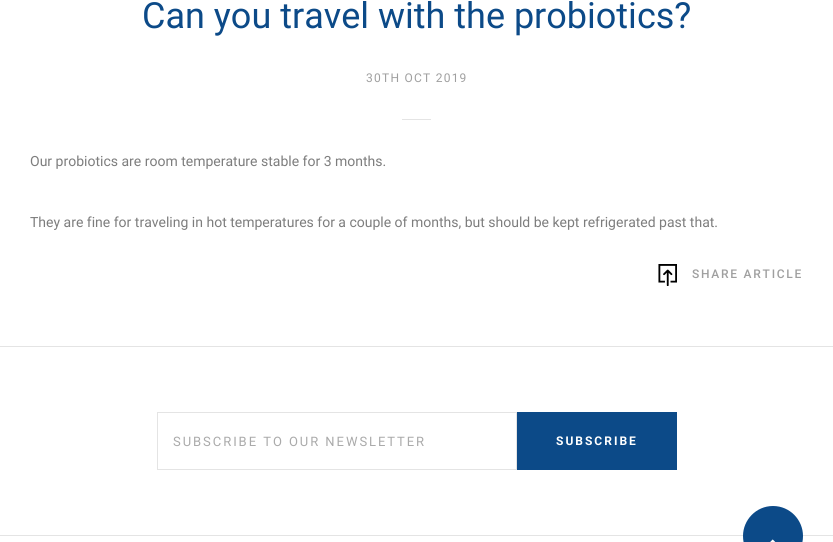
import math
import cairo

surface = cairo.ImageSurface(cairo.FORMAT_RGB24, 833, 542)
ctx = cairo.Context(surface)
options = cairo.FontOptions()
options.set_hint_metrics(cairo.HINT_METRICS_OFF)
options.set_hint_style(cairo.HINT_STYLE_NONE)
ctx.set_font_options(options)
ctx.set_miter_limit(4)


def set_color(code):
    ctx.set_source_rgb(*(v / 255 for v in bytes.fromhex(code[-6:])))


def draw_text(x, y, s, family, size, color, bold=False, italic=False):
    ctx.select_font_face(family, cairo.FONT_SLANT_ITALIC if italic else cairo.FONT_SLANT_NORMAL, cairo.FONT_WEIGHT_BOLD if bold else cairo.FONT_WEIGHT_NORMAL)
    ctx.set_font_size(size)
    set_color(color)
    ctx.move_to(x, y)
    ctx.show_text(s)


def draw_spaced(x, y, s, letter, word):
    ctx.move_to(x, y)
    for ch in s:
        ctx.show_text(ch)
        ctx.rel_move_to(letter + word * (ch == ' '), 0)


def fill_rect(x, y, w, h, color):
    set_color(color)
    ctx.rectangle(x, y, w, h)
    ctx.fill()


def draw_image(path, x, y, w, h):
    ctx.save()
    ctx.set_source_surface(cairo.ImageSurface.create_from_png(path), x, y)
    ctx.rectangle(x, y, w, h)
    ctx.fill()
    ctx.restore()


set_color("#ffffff")
ctx.paint()
draw_text(142, 28, "Can you travel with the probiotics?", "Roboto", 36, "#0c4a88")
ctx.set_font_size(12)
set_color("#9f9f9f")
draw_spaced(366, 82, "30TH OCT 2019", 1.25, 0)
fill_rect(402, 119, 29, 1, "#e4e4e4")
draw_text(30, 166, "Our probiotics are room temperature stable for 3 months.", "Roboto", 14, "#7d7d7d")
draw_text(30, 227, "They are fine for traveling in hot temperatures for a couple of months, but should be kept refrigerated past that.", "Roboto", 14, "#7d7d7d")
draw_image("assets/img1.png", 658, 264, 19, 22)
ctx.select_font_face("Roboto Medium")
ctx.set_font_size(12)
set_color("#9f9f9f")
draw_spaced(692, 278, "SHARE ARTICLE", 1.75, 0)
fill_rect(0, 346, 833, 1, "#e4e4e4")
ctx.rectangle(157.5, 412.5, 359, 57)
ctx.set_line_width(1)
ctx.stroke()
ctx.select_font_face("Roboto")
ctx.set_font_size(13)
set_color("#aaaaaa")
draw_spaced(173, 446, "SUBSCRIBE TO OUR NEWSLETTER", 1.95, 0)
fill_rect(517, 412, 160, 58, "#0c4a88")
ctx.select_font_face("Roboto", cairo.FONT_SLANT_NORMAL, cairo.FONT_WEIGHT_BOLD)
ctx.set_font_size(12)
set_color("#ffffff")
draw_spaced(556, 445, "SUBSCRIBE", 2, 0)
fill_rect(0, 535, 833, 1, "#e4e4e4")
set_color("#0c4a88")
ctx.new_path()
ctx.move_to(743, 536)
ctx.curve_to(743, 520, 756, 506, 773, 506)
ctx.curve_to(790, 506, 803, 520, 803, 536)
ctx.curve_to(803, 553, 790, 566, 773, 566)
ctx.curve_to(756, 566, 743, 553, 743, 536)
ctx.close_path()
ctx.fill()
draw_image("assets/img2.png", 770, 539, 6, 3)
surface.write_to_png("output.png")
